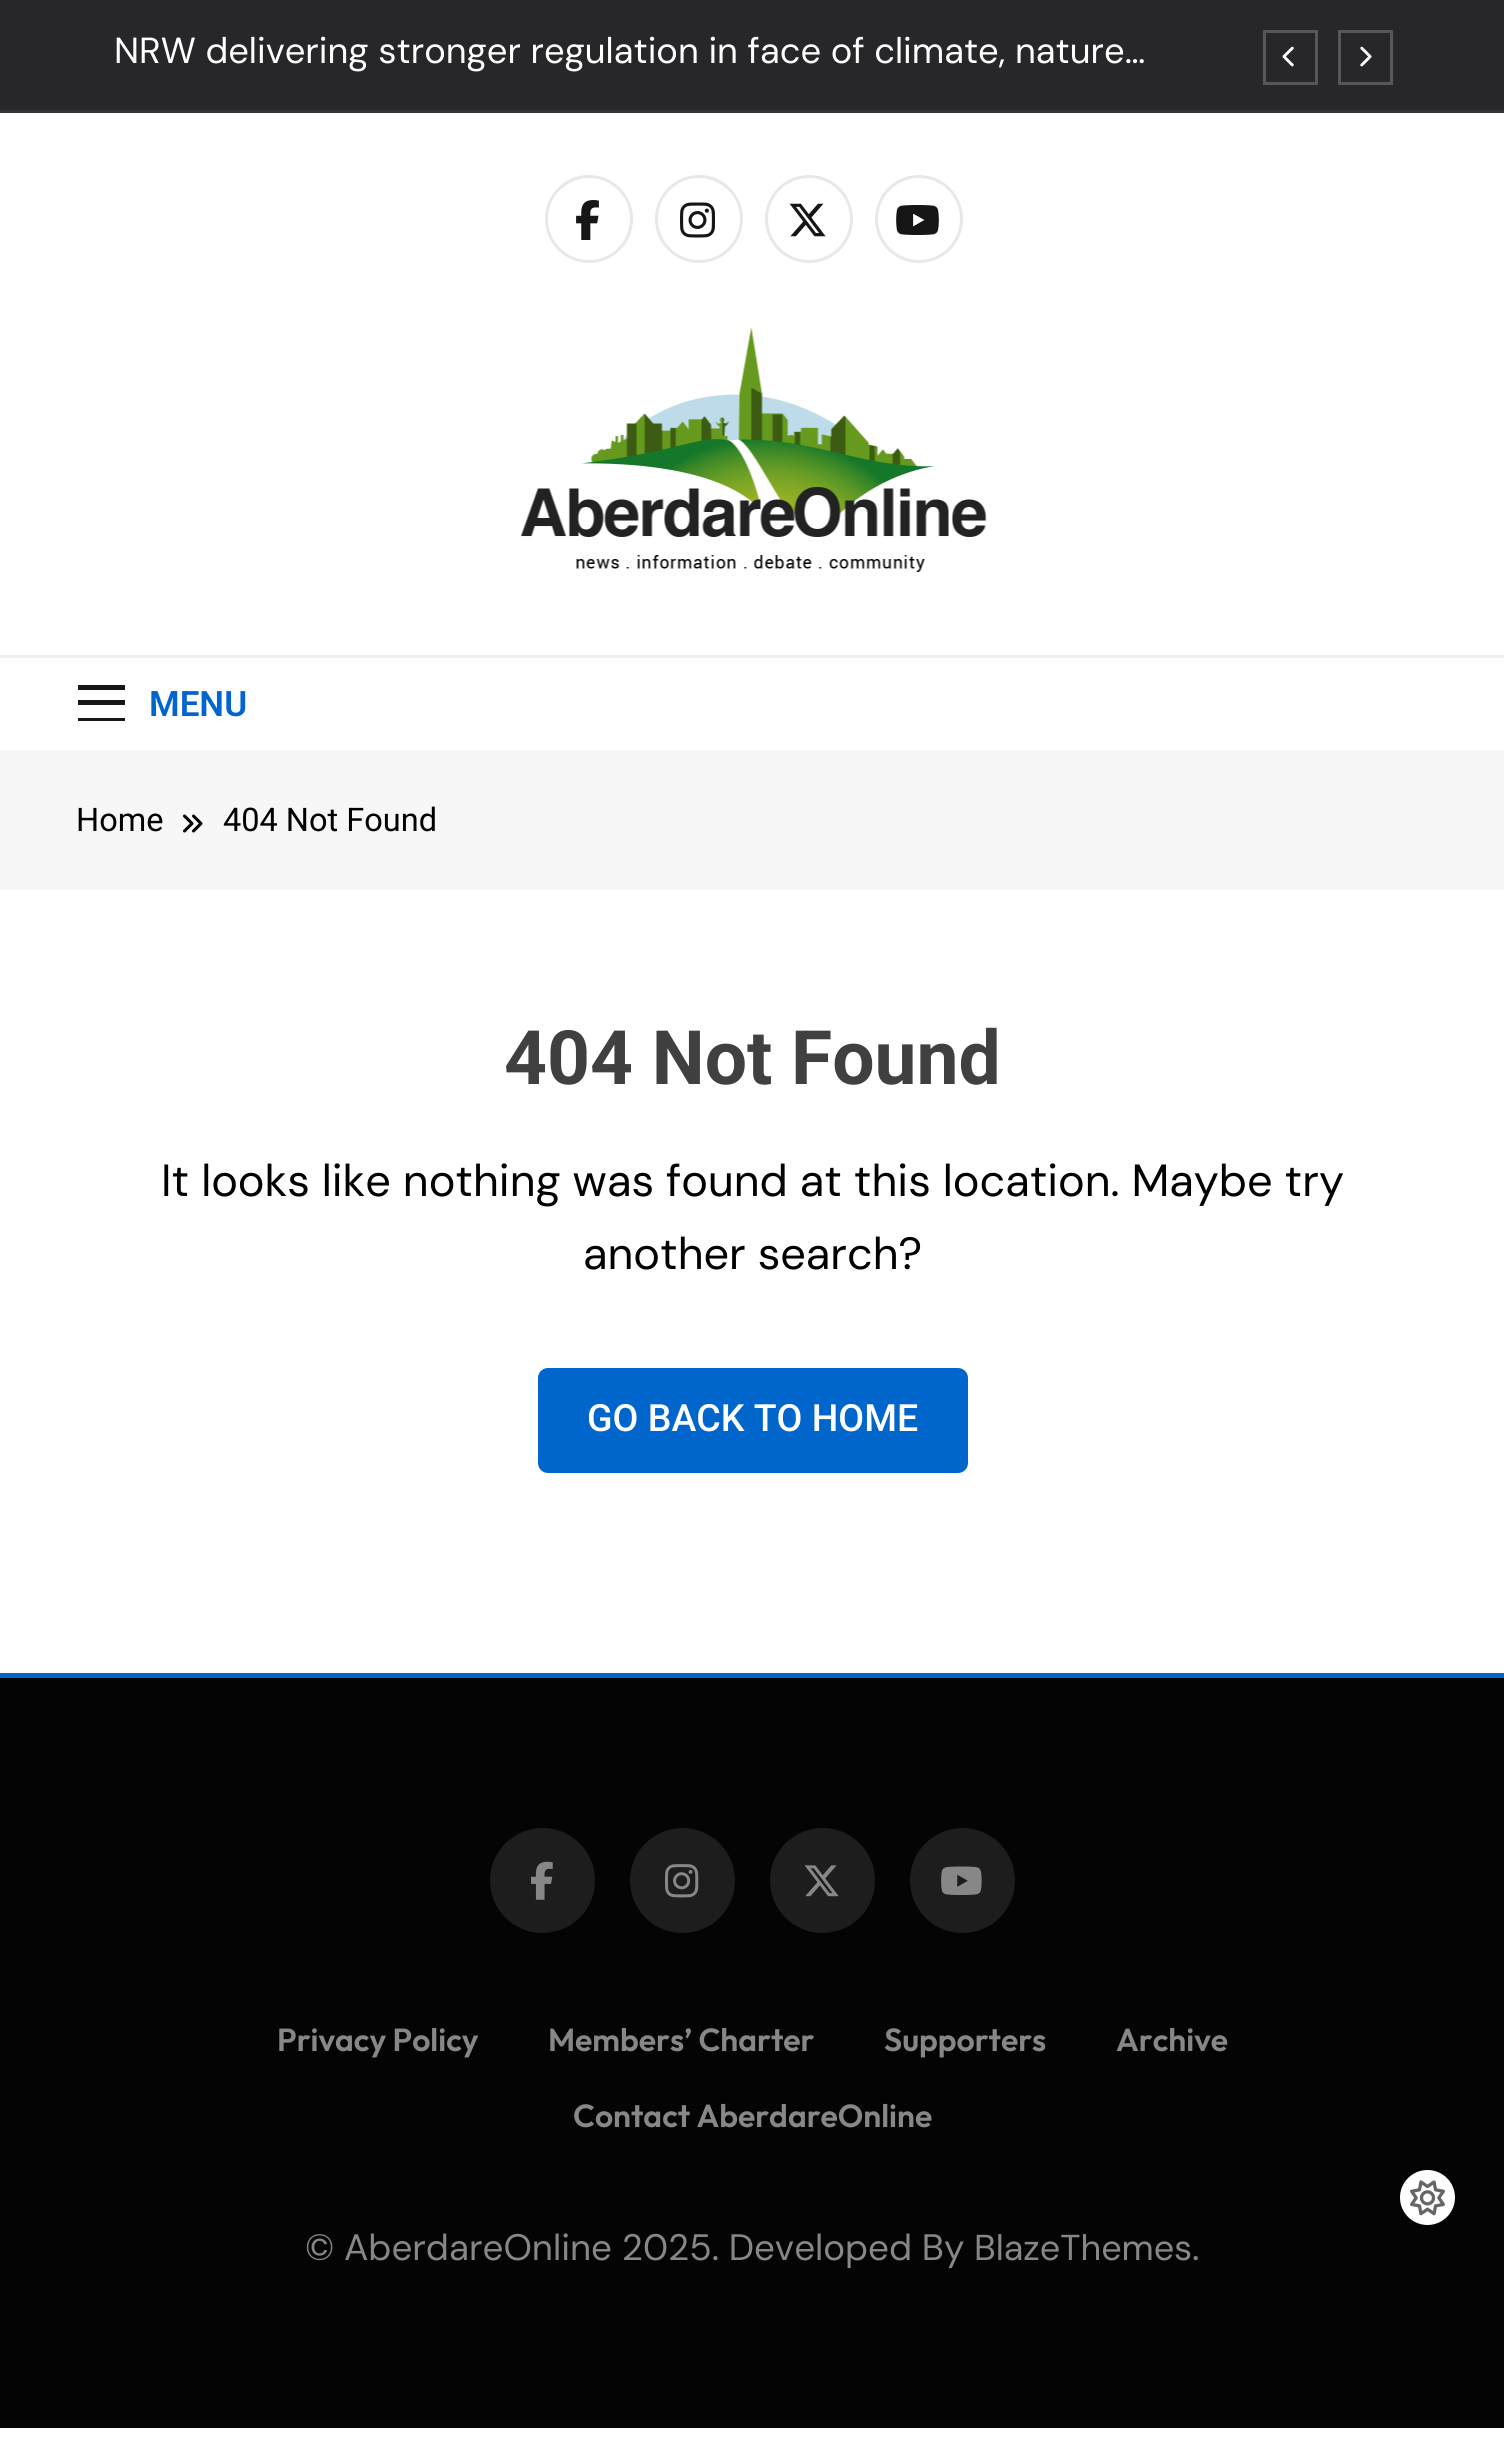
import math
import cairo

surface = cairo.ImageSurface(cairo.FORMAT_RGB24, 1504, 2438)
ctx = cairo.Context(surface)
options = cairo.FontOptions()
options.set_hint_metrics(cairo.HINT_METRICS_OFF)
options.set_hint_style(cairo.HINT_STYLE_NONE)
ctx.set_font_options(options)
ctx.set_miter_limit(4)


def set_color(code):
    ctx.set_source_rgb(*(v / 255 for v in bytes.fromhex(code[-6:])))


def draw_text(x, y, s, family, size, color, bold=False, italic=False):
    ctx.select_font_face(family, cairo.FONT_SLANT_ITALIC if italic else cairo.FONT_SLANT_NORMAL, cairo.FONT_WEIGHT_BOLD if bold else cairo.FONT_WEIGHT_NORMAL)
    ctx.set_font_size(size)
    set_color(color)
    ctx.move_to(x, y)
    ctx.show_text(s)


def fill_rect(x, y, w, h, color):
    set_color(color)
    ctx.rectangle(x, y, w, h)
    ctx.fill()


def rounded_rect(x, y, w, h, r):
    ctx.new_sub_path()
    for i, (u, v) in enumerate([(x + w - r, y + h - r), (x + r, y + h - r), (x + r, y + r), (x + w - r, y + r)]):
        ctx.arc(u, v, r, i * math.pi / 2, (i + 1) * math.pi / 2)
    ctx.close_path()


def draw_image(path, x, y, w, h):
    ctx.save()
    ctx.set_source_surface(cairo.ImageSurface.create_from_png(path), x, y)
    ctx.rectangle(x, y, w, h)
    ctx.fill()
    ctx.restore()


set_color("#ffffff")
ctx.paint()
fill_rect(0, 0, 1504, 110, "#27272a")
fill_rect(0, 110, 1504, 3, "#333333")
draw_text(114, 63, "NRW delivering stronger regulation in face of climate, nature…", "DM Sans", 36.3, "#ffffff")
ctx.rectangle(1264.5, 31.5, 52, 52)
set_color("#575759")
ctx.set_line_width(3)
ctx.stroke()
draw_image("assets/img1.png", 1282, 46, 12, 21)
ctx.rectangle(1339.5, 31.5, 52, 52)
ctx.stroke()
draw_image("assets/img2.png", 1360, 46, 12, 21)
ctx.arc(589, 219, 42.5, 0, 2 * math.pi)
set_color("#e8e8e8")
ctx.stroke()
draw_image("assets/img3.png", 576, 200, 23, 40)
ctx.arc(699, 219, 42.5, 0, 2 * math.pi)
ctx.stroke()
draw_image("assets/img4.png", 680, 202, 35, 36)
ctx.arc(809, 219, 42.5, 0, 2 * math.pi)
ctx.stroke()
draw_image("assets/img5.png", 789, 203, 37, 34)
ctx.arc(919, 219, 42.5, 0, 2 * math.pi)
ctx.stroke()
draw_image("assets/img6.png", 896, 205, 43, 30)
draw_image("assets/img7.png", 520, 327, 467, 245)
fill_rect(0, 655, 1504, 3, "#efefef")
fill_rect(78, 685, 47, 5, "#161616")
fill_rect(78, 700, 47, 5, "#161616")
fill_rect(78, 718, 47, 3, "#161616")
draw_text(149, 716, "MENU", "Roboto SemiBold", 35, "#0066cc")
fill_rect(0, 750, 1504, 140, "#f7f7f7")
draw_text(76, 831, "Home", "Roboto", 32.5, "#000000")
draw_image("assets/img8.png", 183, 814, 20, 19)
draw_text(223, 831, "404 Not Found", "Roboto", 32.5, "#000000")
draw_text(504, 1084, "404 Not Found", "Roboto", 75, "#404040", bold=True)
draw_text(161, 1196, "It looks like nothing was found at this location. Maybe try", "DM Sans", 45, "#000000")
draw_text(583, 1269, "another search?", "DM Sans", 45, "#000000")
set_color("#0066cc")
rounded_rect(538, 1368, 430, 105, 10)
ctx.fill()
draw_text(587, 1431, "GO BACK TO HOME", "Roboto Medium", 37.5, "#ffffff")
fill_rect(0, 1673, 1504, 5, "#0066cc")
fill_rect(0, 1678, 1504, 750, "#040404")
set_color("#1d1d1d")
ctx.new_path()
ctx.arc(542.5, 1880.5, 52.5, 0, 2 * math.pi)
ctx.fill()
draw_image("assets/img9.png", 531, 1861, 22, 39)
ctx.arc(682.5, 1880.5, 52.5, 0, 2 * math.pi)
ctx.fill()
draw_image("assets/img10.png", 665, 1864, 34, 34)
ctx.arc(822.5, 1880.5, 52.5, 0, 2 * math.pi)
ctx.fill()
draw_image("assets/img11.png", 804, 1865, 35, 32)
ctx.arc(962.5, 1880.5, 52.5, 0, 2 * math.pi)
ctx.fill()
draw_image("assets/img12.png", 941, 1866, 41, 29)
draw_text(277, 2051, "Privacy Policy", "Outfit SemiBold", 31.9, "#878787")
draw_text(548, 2051, "Members’ Charter", "Outfit SemiBold", 31.9, "#878787")
draw_text(884, 2051, "Supporters", "Outfit SemiBold", 31.9, "#878787")
draw_text(1116, 2051, "Archive", "Outfit SemiBold", 31.9, "#878787")
draw_text(573, 2127, "Contact AberdareOnline", "Outfit SemiBold", 31.9, "#878787")
draw_text(305, 2260, "© AberdareOnline 2025. Developed By", "DM Sans", 36.75, "#878787")
draw_text(974, 2260, "BlazeThemes", "DM Sans", 36, "#878787")
draw_text(1192, 2260, ".", "DM Sans", 36.75, "#878787")
set_color("#ffffff")
ctx.new_path()
ctx.arc(1427.5, 2197.5, 27.5, 0, 2 * math.pi)
ctx.fill()
draw_image("assets/img13.png", 1410, 2180, 35, 36)
surface.write_to_png("output.png")
